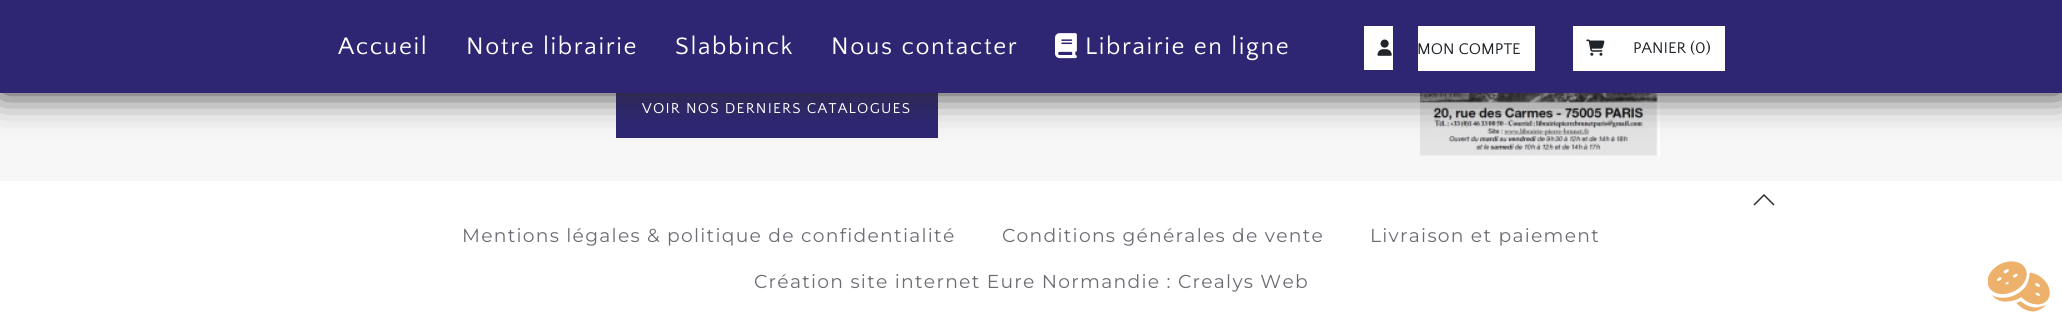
import math
import cairo

surface = cairo.ImageSurface(cairo.FORMAT_RGB24, 2062, 329)
ctx = cairo.Context(surface)
options = cairo.FontOptions()
options.set_hint_metrics(cairo.HINT_METRICS_OFF)
options.set_hint_style(cairo.HINT_STYLE_NONE)
ctx.set_font_options(options)
ctx.set_miter_limit(4)


def set_color(code):
    ctx.set_source_rgb(*(v / 255 for v in bytes.fromhex(code[-6:])))


def draw_text(x, y, s, family, size, color, bold=False, italic=False):
    ctx.select_font_face(family, cairo.FONT_SLANT_ITALIC if italic else cairo.FONT_SLANT_NORMAL, cairo.FONT_WEIGHT_BOLD if bold else cairo.FONT_WEIGHT_NORMAL)
    ctx.set_font_size(size)
    set_color(color)
    ctx.move_to(x, y)
    ctx.show_text(s)


def draw_spaced(x, y, s, letter, word):
    ctx.move_to(x, y)
    for ch in s:
        ctx.show_text(ch)
        ctx.rel_move_to(letter + word * (ch == ' '), 0)


def fill_rect(x, y, w, h, color):
    set_color(color)
    ctx.rectangle(x, y, w, h)
    ctx.fill()


def rounded_rect(x, y, w, h, r):
    ctx.new_sub_path()
    for i, (u, v) in enumerate([(x + w - r, y + h - r), (x + r, y + h - r), (x + r, y + r), (x + w - r, y + r)]):
        ctx.arc(u, v, r, i * math.pi / 2, (i + 1) * math.pi / 2)
    ctx.close_path()


def draw_shadow(x, y, w, h, r, blur, alpha):
    ctx.push_group_with_content(cairo.CONTENT_ALPHA)
    ctx.set_operator(cairo.OPERATOR_SOURCE)
    for i in range(15, -16, -2):
        e = blur * i / 6
        if min(w, h) + 2 * e > 0:
            ctx.set_source_rgba(0, 0, 0, alpha * math.erfc((i - 1) / 8.5) / 2)
            rounded_rect(x - e, y - e, w + 2 * e, h + 2 * e, max(0, min(r + e + blur * .6, min(w, h) / 2 + e)))
            ctx.fill()
    ctx.mask(ctx.pop_group())


def draw_image(path, x, y, w, h):
    ctx.save()
    ctx.set_source_surface(cairo.ImageSurface.create_from_png(path), x, y)
    ctx.rectangle(x, y, w, h)
    ctx.fill()
    ctx.restore()


set_color("#ffffff")
ctx.paint()
fill_rect(0, 93, 2062, 88, "#f7f7f7")
fill_rect(616, 93, 322, 45, "#2e2673")
draw_image("assets/img4.png", 1420, 93, 240, 63)
set_color("#2e2e2e")
draw_shadow(0, 0, 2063, 93, 0, 19, 1)
fill_rect(0, 0, 2062, 93, "#2e2673")
ctx.select_font_face("Quattrocento Sans")
ctx.set_font_size(25)
set_color("#ffffff")
draw_spaced(338, 54, "Accueil", 1.6, 0)
draw_spaced(466, 54, "Notre librairie", 1.6, 0)
draw_spaced(675, 54, "Slabbinck", 1.6, 0)
draw_spaced(831, 54, "Nous contacter", 1.6, 0)
draw_image("assets/img1.png", 1055, 33, 22, 26)
draw_spaced(1085, 54, "Librairie en ligne", 1.6, 0)
fill_rect(1364, 26, 29, 44, "#ffffff")
fill_rect(1418, 26, 117, 45, "#ffffff")
draw_image("assets/img2.png", 1377, 39, 15, 17)
draw_text(1417, 54, "MON COMPTE", "Quattrocento Sans", 16.25, "#212529")
fill_rect(1573, 26, 152, 45, "#ffffff")
draw_image("assets/img3.png", 1586, 39, 19, 17)
draw_text(1633, 53, "PANIER (0)", "Quattrocento Sans", 16.25, "#212529")
ctx.set_font_size(15)
set_color("#ffffff")
draw_spaced(642, 113, "VOIR NOS DERNIERS CATALOGUES", 1.25, 0)
ctx.new_path()
ctx.move_to(1754, 205)
ctx.line_to(1764, 195)
ctx.line_to(1774, 205)
set_color("#2d2e33")
ctx.set_line_width(1.5)
ctx.stroke()
ctx.select_font_face("Montserrat Thin")
ctx.set_font_size(18.75)
set_color("#6c6d74")
draw_spaced(462, 242, "Mentions légales & politique de confidentialité", 1.25, 0)
draw_spaced(1002, 242, "Conditions générales de vente", 1.25, 0)
draw_spaced(1370, 242, "Livraison et paiement", 1.25, 0)
draw_spaced(754, 288, "Création site internet Eure Normandie : Crealys Web", 1.25, 0)
draw_image("assets/img5.png", 1988, 261, 62, 51)
surface.write_to_png("output.png")
